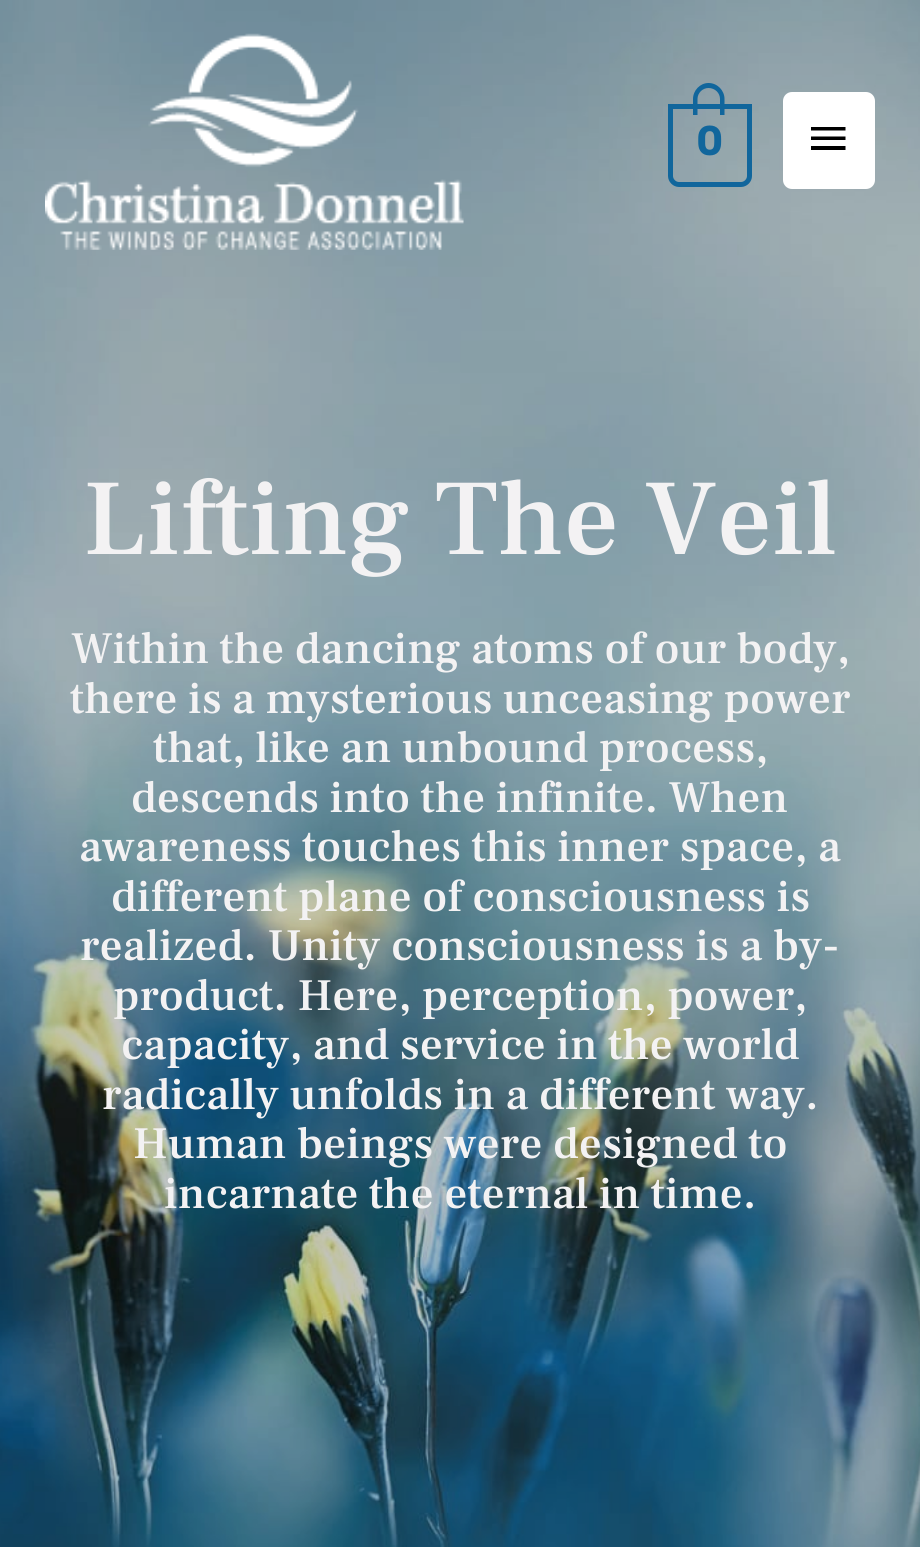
import math
import cairo

surface = cairo.ImageSurface(cairo.FORMAT_RGB24, 920, 1547)
ctx = cairo.Context(surface)
options = cairo.FontOptions()
options.set_hint_metrics(cairo.HINT_METRICS_OFF)
options.set_hint_style(cairo.HINT_STYLE_NONE)
ctx.set_font_options(options)
ctx.set_miter_limit(4)


def set_color(code):
    ctx.set_source_rgb(*(v / 255 for v in bytes.fromhex(code[-6:])))


def draw_text(x, y, s, family, size, color, bold=False, italic=False):
    ctx.select_font_face(family, cairo.FONT_SLANT_ITALIC if italic else cairo.FONT_SLANT_NORMAL, cairo.FONT_WEIGHT_BOLD if bold else cairo.FONT_WEIGHT_NORMAL)
    ctx.set_font_size(size)
    set_color(color)
    ctx.move_to(x, y)
    ctx.show_text(s)


def rounded_rect(x, y, w, h, r):
    ctx.new_sub_path()
    for i, (u, v) in enumerate([(x + w - r, y + h - r), (x + r, y + h - r), (x + r, y + r), (x + w - r, y + r)]):
        ctx.arc(u, v, r, i * math.pi / 2, (i + 1) * math.pi / 2)
    ctx.close_path()


def draw_image(path, x, y, w, h):
    ctx.save()
    ctx.set_source_surface(cairo.ImageSurface.create_from_png(path), x, y)
    ctx.rectangle(x, y, w, h)
    ctx.fill()
    ctx.restore()


set_color("#ffffff")
ctx.paint()
draw_image("assets/img2.png", 0, 0, 920, 1547)
draw_image("assets/img1.png", 45, 33, 419, 217)
ctx.new_path()
ctx.move_to(670.5, 106.5)
ctx.line_to(749.5, 106.5)
ctx.line_to(749.5, 176)
ctx.curve_to(749.5, 180.5, 745.5, 184.5, 741, 184.5)
ctx.line_to(679, 184.5)
ctx.curve_to(674.5, 184.5, 670.5, 180.5, 670.5, 176)
ctx.close_path()
set_color("#11669c")
ctx.set_line_width(5)
ctx.stroke()
ctx.set_fill_rule(cairo.FILL_RULE_EVEN_ODD)
ctx.new_path()
ctx.move_to(708.5, 83)
ctx.curve_to(717.5, 83, 724.5, 90.5, 724.5, 99)
ctx.line_to(724.5, 115)
ctx.line_to(693, 115)
ctx.line_to(693, 99)
ctx.curve_to(693, 90.5, 700, 83, 708.5, 83)
ctx.close_path()
ctx.move_to(708.5, 88)
ctx.curve_to(715, 88, 720, 93, 720, 99)
ctx.line_to(720, 115)
ctx.line_to(697.5, 115)
ctx.line_to(697.5, 99)
ctx.curve_to(697.5, 93, 702.5, 88, 708.5, 88)
ctx.close_path()
ctx.fill()
draw_text(696, 155, "0", "Rubik", 40, "#11669c", bold=True)
set_color("#ffffff")
rounded_rect(783, 92, 92, 97, 9)
ctx.fill()
set_color("#000000")
ctx.set_fill_rule(cairo.FILL_RULE_WINDING)
ctx.new_path()
ctx.move_to(811, 127)
ctx.line_to(845.5, 127)
ctx.line_to(845.5, 130.5)
ctx.line_to(811, 130.5)
ctx.close_path()
ctx.move_to(811, 140)
ctx.line_to(811, 136.5)
ctx.line_to(845.5, 136.5)
ctx.line_to(845.5, 140)
ctx.close_path()
ctx.move_to(811, 150)
ctx.line_to(811, 146)
ctx.line_to(845.5, 146)
ctx.line_to(845.5, 150)
ctx.close_path()
ctx.fill()
draw_text(83, 554, "Lifting The Veil", "Frank Ruhl Libre Medium", 108, "#f3f2f3")
draw_text(71, 663, "Within the dancing atoms of our body,", "Frank Ruhl Libre Medium", 45, "#f3f2f3")
draw_text(70, 713, "there is a mysterious unceasing power", "Frank Ruhl Libre Medium", 45, "#f3f2f3")
draw_text(153, 762, "that, like an unbound process,", "Frank Ruhl Libre Medium", 45, "#f3f2f3")
draw_text(131, 812, "descends into the infinite. When", "Frank Ruhl Libre Medium", 45, "#f3f2f3")
draw_text(79, 861, "awareness touches this inner space, a", "Frank Ruhl Libre Medium", 45, "#f3f2f3")
draw_text(111, 911, "different plane of consciousness is", "Frank Ruhl Libre Medium", 45, "#f3f2f3")
draw_text(80, 960, "realized. Unity consciousness is a by-", "Frank Ruhl Libre Medium", 45, "#f3f2f3")
draw_text(113, 1010, "product. Here, perception, power,", "Frank Ruhl Libre Medium", 45, "#f3f2f3")
draw_text(121, 1059, "capacity, and service in the world", "Frank Ruhl Libre Medium", 45, "#f3f2f3")
draw_text(102, 1109, "radically unfolds in a different way.", "Frank Ruhl Libre Medium", 45, "#f3f2f3")
draw_text(133, 1158, "Human beings were designed to", "Frank Ruhl Libre Medium", 45, "#f3f2f3")
draw_text(164, 1208, "incarnate the eternal in time.", "Frank Ruhl Libre Medium", 45, "#f3f2f3")
surface.write_to_png("output.png")
